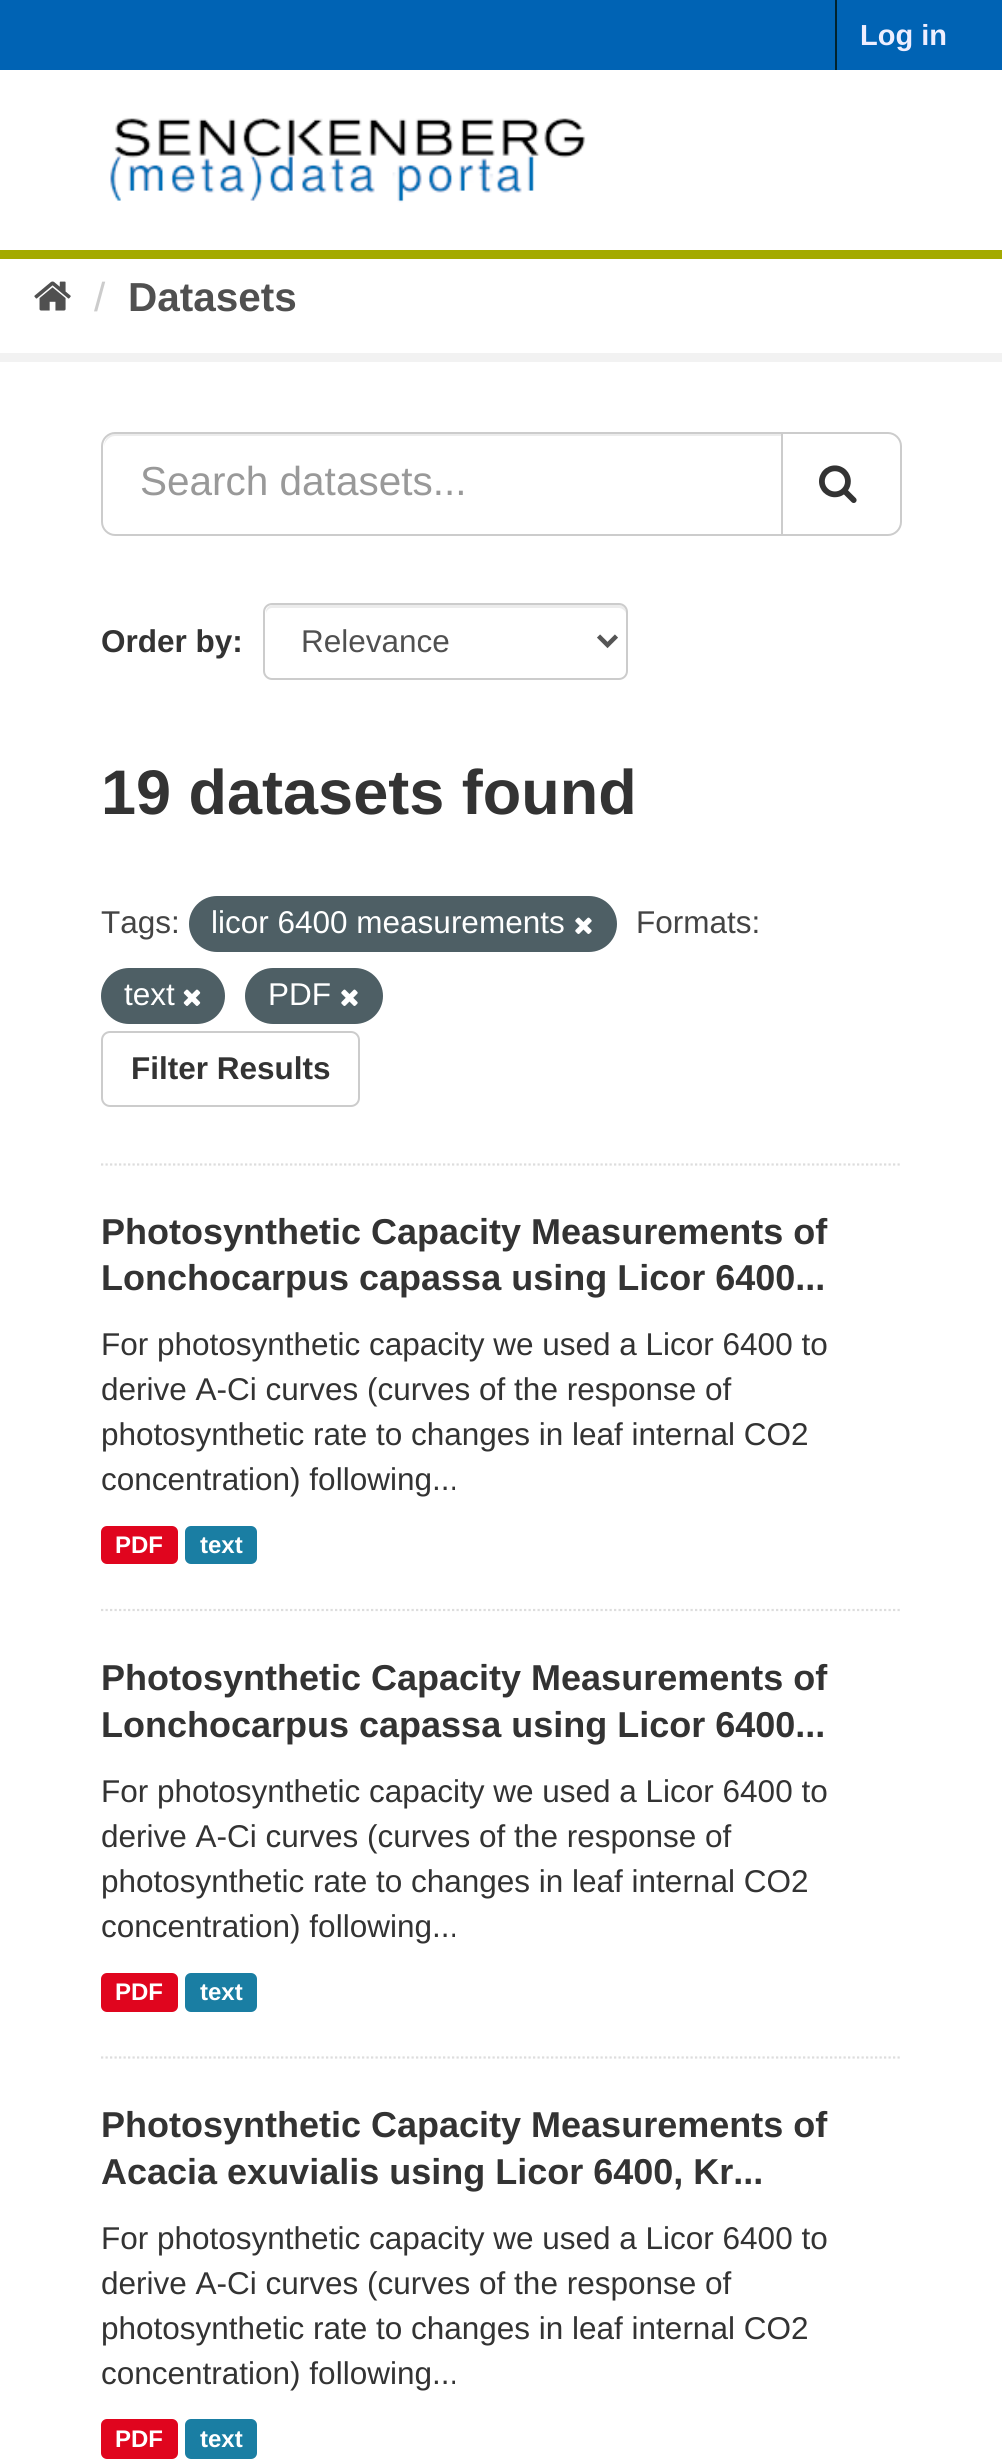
import math
import cairo

surface = cairo.ImageSurface(cairo.FORMAT_RGB24, 1002, 2462)
ctx = cairo.Context(surface)
options = cairo.FontOptions()
options.set_hint_metrics(cairo.HINT_METRICS_OFF)
options.set_hint_style(cairo.HINT_STYLE_NONE)
ctx.set_font_options(options)
ctx.set_miter_limit(4)


def set_color(code):
    ctx.set_source_rgb(*(v / 255 for v in bytes.fromhex(code[-6:])))


def draw_text(x, y, s, family, size, color, bold=False, italic=False):
    ctx.select_font_face(family, cairo.FONT_SLANT_ITALIC if italic else cairo.FONT_SLANT_NORMAL, cairo.FONT_WEIGHT_BOLD if bold else cairo.FONT_WEIGHT_NORMAL)
    ctx.set_font_size(size)
    set_color(color)
    ctx.move_to(x, y)
    ctx.show_text(s)


def fill_rect(x, y, w, h, color):
    set_color(color)
    ctx.rectangle(x, y, w, h)
    ctx.fill()


def rounded_rect(x, y, w, h, r):
    ctx.new_sub_path()
    for i, (u, v) in enumerate([(x + w - r, y + h - r), (x + r, y + h - r), (x + r, y + r), (x + w - r, y + r)]):
        ctx.arc(u, v, r, i * math.pi / 2, (i + 1) * math.pi / 2)
    ctx.close_path()


def draw_image(path, x, y, w, h):
    ctx.save()
    ctx.set_source_surface(cairo.ImageSurface.create_from_png(path), x, y)
    ctx.rectangle(x, y, w, h)
    ctx.fill()
    ctx.restore()


set_color("#ffffff")
ctx.paint()
fill_rect(0, 0, 1002, 70, "#0063b4")
fill_rect(835, 0, 2, 70, "#00232e")
draw_text(860, 45, "Log in", "Liberation Sans", 29, "#eeeeff", bold=True)
fill_rect(0, 250, 1002, 9, "#a4aa00")
draw_image("assets/img1.png", 110, 118, 476, 85)
draw_image("assets/img2.png", 34, 281, 37, 30)
draw_text(94, 311, "/", "Liberation Sans", 40.5, "#cccccc")
draw_text(128, 311, "Datasets", "Liberation Sans", 40.5, "#505050", bold=True)
ctx.rectangle(-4.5, 357.5, 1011, 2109)
set_color("#f2f2f2")
ctx.set_line_width(9)
ctx.stroke()
ctx.new_path()
ctx.move_to(101, 1164.5)
ctx.line_to(902, 1164.5)
set_color("#dddddd")
ctx.set_line_width(2.2)
ctx.set_dash([2.25, 2.25])
ctx.stroke()
set_color("#ececec")
ctx.new_path()
ctx.move_to(115, 436)
ctx.line_to(781, 436)
ctx.line_to(781, 434)
ctx.line_to(115, 434)
ctx.curve_to(107, 434, 104, 441, 104, 448)
ctx.curve_to(104, 442, 109, 436, 115, 436)
ctx.close_path()
ctx.fill()
ctx.new_path()
ctx.move_to(115, 433)
ctx.line_to(782, 433)
ctx.line_to(782, 535)
ctx.line_to(115, 535)
ctx.curve_to(108, 535, 102, 529, 102, 522)
ctx.line_to(102, 446)
ctx.curve_to(102, 439, 108, 433, 115, 433)
ctx.close_path()
set_color("#cccccc")
ctx.set_line_width(2)
ctx.set_dash([])
ctx.stroke()
draw_text(140, 495, "Search datasets...", "Liberation Sans", 40.5, "#999999")
set_color("#ffffff")
ctx.new_path()
ctx.move_to(782, 433)
ctx.line_to(888, 433)
ctx.curve_to(895, 433, 901, 439, 901, 446)
ctx.line_to(901, 522)
ctx.curve_to(901, 529, 895, 535, 888, 535)
ctx.line_to(782, 535)
ctx.close_path()
ctx.fill_preserve()
set_color("#cccccc")
ctx.stroke()
draw_image("assets/img3.png", 819, 465, 38, 38)
draw_text(101, 652, "Order by:", "Liberation Sans", 31.5, "#333333", bold=True)
set_color("#ececec")
ctx.new_path()
ctx.move_to(272, 608)
ctx.line_to(619, 608)
ctx.curve_to(622, 608, 626, 611, 626, 614)
ctx.line_to(626, 612)
ctx.curve_to(626, 608, 623, 605, 619, 605)
ctx.line_to(273, 605)
ctx.curve_to(269, 605, 266, 608, 266, 612)
ctx.line_to(266, 614)
ctx.curve_to(266, 611, 269, 608, 272, 608)
ctx.close_path()
ctx.fill()
rounded_rect(264, 604, 363, 75, 8)
set_color("#cccccc")
ctx.stroke()
ctx.new_path()
ctx.move_to(598.5, 636)
ctx.line_to(607.5, 645)
ctx.line_to(616.5, 636)
set_color("#555555")
ctx.set_line_width(4.5)
ctx.stroke()
draw_text(301, 652, "Relevance", "Liberation Sans", 31.5, "#505050")
draw_text(101, 814, "19 datasets found", "Liberation Sans", 63, "#333333", bold=True)
draw_text(101, 933, "Tags:", "Liberation Sans", 31.5, "#444444")
set_color("#4e5f65")
rounded_rect(189, 896, 428, 56, 28)
ctx.fill()
draw_text(211, 933, "licor 6400 measurements", "Liberation Sans", 31.5, "#ffffff")
draw_image("assets/img4.png", 575, 917, 17, 17)
draw_text(636, 933, "Formats:", "Liberation Sans", 31.5, "#444444")
set_color("#4e5f65")
rounded_rect(101, 968, 124, 56, 28)
ctx.fill()
draw_text(124, 1005, "text", "Liberation Sans", 31.5, "#ffffff")
draw_image("assets/img5.png", 183, 989, 18, 17)
set_color("#4e5f65")
rounded_rect(245, 968, 138, 56, 28)
ctx.fill()
draw_text(268, 1005, "PDF", "Liberation Sans", 31.5, "#ffffff")
draw_image("assets/img4.png", 341, 989, 17, 17)
rounded_rect(102, 1032, 257, 74, 8)
set_color("#cccccc")
ctx.set_line_width(2)
ctx.stroke()
draw_text(131, 1079, "Filter Results", "Liberation Sans", 31.5, "#333333", bold=True)
ctx.new_path()
ctx.move_to(101, 1610)
ctx.line_to(902, 1610)
set_color("#dddddd")
ctx.set_line_width(2.2)
ctx.set_dash([2.25, 2.25])
ctx.stroke()
draw_text(101, 1244, "Photosynthetic Capacity Measurements of", "Liberation Sans", 36, "#333333", bold=True)
draw_text(101, 1290, "Lonchocarpus capassa using Licor 6400...", "Liberation Sans", 36, "#333333", bold=True)
draw_text(101, 1355, "For photosynthetic capacity we used a Licor 6400 to", "Liberation Sans", 31.5, "#333333")
draw_text(101, 1400, "derive A-Ci curves (curves of the response of", "Liberation Sans", 31.5, "#333333")
draw_text(101, 1445, "photosynthetic rate to changes in leaf internal CO2", "Liberation Sans", 31.5, "#333333")
draw_text(101, 1490, "concentration) following...", "Liberation Sans", 31.5, "#333333")
set_color("#e0051e")
rounded_rect(101, 1526, 77, 38, 6)
ctx.fill()
draw_text(115, 1553, "PDF", "Liberation Sans", 24, "#ffffff", bold=True)
set_color("#1a7ea3")
rounded_rect(185, 1526, 72, 38, 6)
ctx.fill()
draw_text(200, 1553, "text", "Liberation Sans", 24, "#ffffff", bold=True)
ctx.new_path()
ctx.move_to(101, 2057.5)
ctx.line_to(902, 2057.5)
set_color("#dddddd")
ctx.stroke()
draw_text(101, 1690, "Photosynthetic Capacity Measurements of", "Liberation Sans", 36, "#333333", bold=True)
draw_text(101, 1737, "Lonchocarpus capassa using Licor 6400...", "Liberation Sans", 36, "#333333", bold=True)
draw_text(101, 1802, "For photosynthetic capacity we used a Licor 6400 to", "Liberation Sans", 31.5, "#333333")
draw_text(101, 1847, "derive A-Ci curves (curves of the response of", "Liberation Sans", 31.5, "#333333")
draw_text(101, 1892, "photosynthetic rate to changes in leaf internal CO2", "Liberation Sans", 31.5, "#333333")
draw_text(101, 1937, "concentration) following...", "Liberation Sans", 31.5, "#333333")
set_color("#e0051e")
rounded_rect(101, 1973, 77, 39, 6)
ctx.fill()
draw_text(115, 2000, "PDF", "Liberation Sans", 24, "#ffffff", bold=True)
set_color("#1a7ea3")
rounded_rect(185, 1973, 72, 39, 6)
ctx.fill()
draw_text(200, 2000, "text", "Liberation Sans", 24, "#ffffff", bold=True)
draw_text(101, 2137, "Photosynthetic Capacity Measurements of", "Liberation Sans", 36, "#333333", bold=True)
draw_text(101, 2184, "Acacia exuvialis using Licor 6400, Kr...", "Liberation Sans", 36, "#333333", bold=True)
draw_text(101, 2249, "For photosynthetic capacity we used a Licor 6400 to", "Liberation Sans", 31.5, "#333333")
draw_text(101, 2294, "derive A-Ci curves (curves of the response of", "Liberation Sans", 31.5, "#333333")
draw_text(101, 2339, "photosynthetic rate to changes in leaf internal CO2", "Liberation Sans", 31.5, "#333333")
draw_text(101, 2384, "concentration) following...", "Liberation Sans", 31.5, "#333333")
set_color("#e0051e")
rounded_rect(101, 2419, 77, 40, 6)
ctx.fill()
draw_text(115, 2447, "PDF", "Liberation Sans", 24, "#ffffff", bold=True)
set_color("#1a7ea3")
rounded_rect(185, 2419, 72, 40, 6)
ctx.fill()
draw_text(200, 2447, "text", "Liberation Sans", 24, "#ffffff", bold=True)
surface.write_to_png("output.png")
